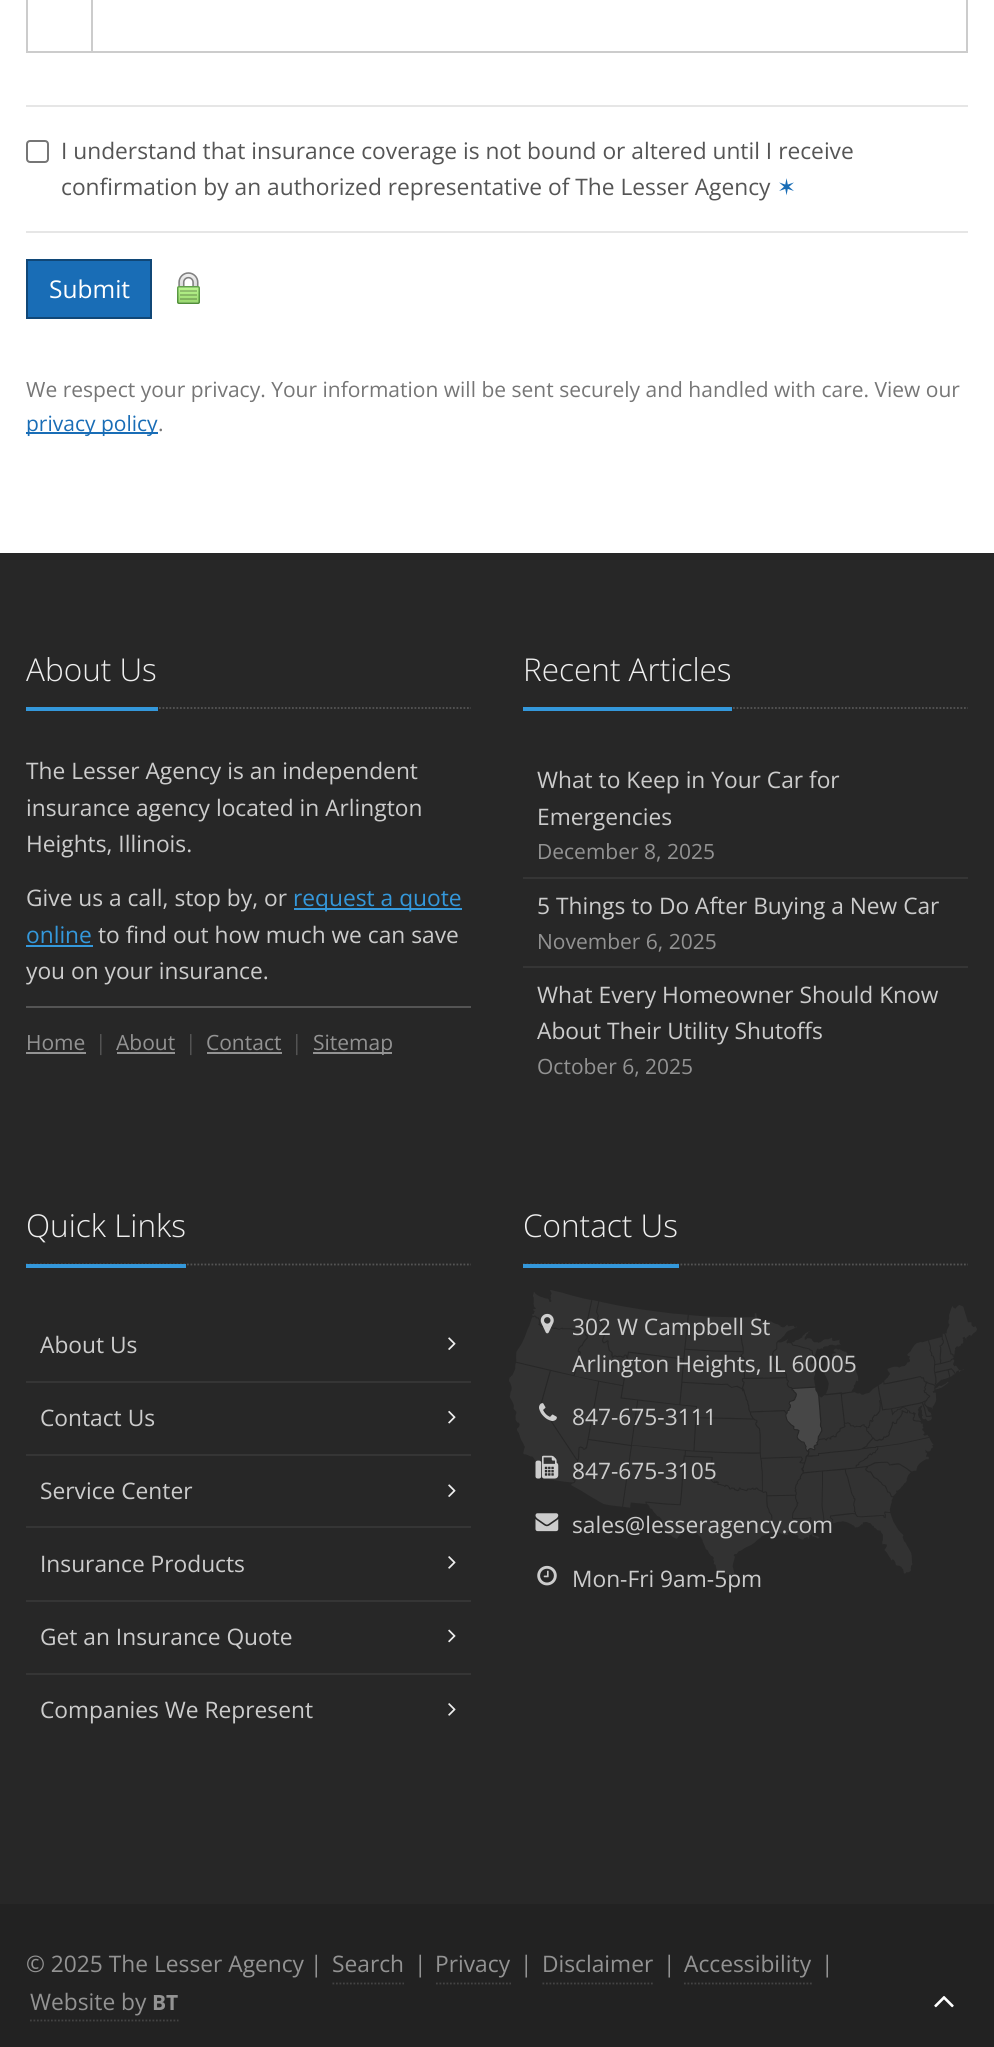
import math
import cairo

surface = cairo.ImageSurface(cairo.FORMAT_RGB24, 994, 2047)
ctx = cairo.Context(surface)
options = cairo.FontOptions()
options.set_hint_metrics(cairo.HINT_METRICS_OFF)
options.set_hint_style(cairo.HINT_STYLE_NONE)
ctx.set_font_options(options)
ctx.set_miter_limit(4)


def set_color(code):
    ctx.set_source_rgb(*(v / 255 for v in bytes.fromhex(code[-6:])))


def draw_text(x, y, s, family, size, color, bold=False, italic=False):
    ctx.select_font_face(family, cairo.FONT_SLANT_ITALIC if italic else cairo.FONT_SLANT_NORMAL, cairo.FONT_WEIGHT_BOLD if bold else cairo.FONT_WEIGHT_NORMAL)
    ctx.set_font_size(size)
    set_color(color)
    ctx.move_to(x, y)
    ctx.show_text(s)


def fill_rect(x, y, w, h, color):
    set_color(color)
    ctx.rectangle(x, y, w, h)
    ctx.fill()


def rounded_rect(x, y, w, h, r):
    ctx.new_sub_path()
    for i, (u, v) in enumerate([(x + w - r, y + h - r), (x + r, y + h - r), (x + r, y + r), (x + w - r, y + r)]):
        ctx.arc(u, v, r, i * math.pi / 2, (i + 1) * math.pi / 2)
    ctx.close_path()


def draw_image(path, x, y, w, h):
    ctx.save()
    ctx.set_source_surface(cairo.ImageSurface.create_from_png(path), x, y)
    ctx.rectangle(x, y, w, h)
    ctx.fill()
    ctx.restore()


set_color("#ffffff")
ctx.paint()
fill_rect(26, 51, 65, 2, "#cccccc")
fill_rect(26, 0, 2, 53, "#cccccc")
ctx.rectangle(92, -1, 875, 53)
ctx.stroke()
fill_rect(26, 105, 942, 2, "#e6e6e6")
rounded_rect(27, 141, 21, 21, 3)
set_color("#767676")
ctx.stroke()
draw_text(61, 159, "I understand that insurance coverage is not bound or altered until I receive", "Open Sans", 22.75, "#555555")
draw_text(61, 195, "confirmation by an authorized representative of The Lesser Agency", "Open Sans", 22.75, "#555555")
draw_text(777, 195, "✶", "DejaVu Sans", 22.75, "#196db6")
fill_rect(26, 231, 942, 2, "#e6e6e6")
set_color("#196db6")
ctx.rectangle(27, 260, 124, 58)
ctx.fill_preserve()
set_color("#104777")
ctx.stroke()
draw_text(49, 298, "Submit", "Open Sans", 24.5, "#ffffff")
draw_image("assets/img1.png", 177, 272, 23, 32)
draw_text(26, 397, "We respect your privacy. Your information will be sent securely and handled with care. View our", "Open Sans", 21, "#767676")
fill_rect(26, 432, 132, 2, "#196db6")
draw_text(26, 431, "privacy policy", "Open Sans", 21, "#196db6")
draw_text(158, 431, ".", "Open Sans", 21, "#767676")
fill_rect(0, 553, 994, 1351, "#272727")
ctx.new_path()
ctx.move_to(26, 708)
ctx.line_to(471, 708)
set_color("#545454")
ctx.set_line_width(1.8)
ctx.set_dash([1.75, 1.75])
ctx.stroke()
fill_rect(26, 707, 132, 4, "#3498db")
draw_text(26, 681, "About Us", "Open Sans Light", 31.5, "#eeeeee")
draw_text(26, 779, "The Lesser Agency is an independent", "Open Sans", 22.75, "#cccccc")
draw_text(26, 816, "insurance agency located in Arlington", "Open Sans", 22.75, "#cccccc")
draw_text(26, 852, "Heights, Illinois.", "Open Sans", 22.75, "#cccccc")
draw_text(26, 906, "Give us a call, stop by, or", "Open Sans", 22.75, "#cccccc")
fill_rect(294, 908, 168, 2, "#3498db")
draw_text(293, 906, "request a quote", "Open Sans", 22.75, "#3498db")
draw_text(26, 943, "online", "Open Sans", 22.75, "#3498db")
fill_rect(26, 945, 67, 2, "#3498db")
draw_text(98, 943, "to find out how much we can save", "Open Sans", 22.75, "#cccccc")
draw_text(26, 979, "you on your insurance.", "Open Sans", 22.75, "#cccccc")
fill_rect(26, 1006, 445, 2, "#545454")
draw_text(26, 1050, "Home", "Open Sans", 21, "#939393")
fill_rect(26, 1052, 60, 2, "#939393")
draw_text(95, 1050, "|", "Open Sans", 21, "#555555")
draw_text(116, 1050, "About", "Open Sans", 21, "#939393")
fill_rect(117, 1052, 58, 2, "#939393")
draw_text(185, 1050, "|", "Open Sans", 21, "#555555")
draw_text(206, 1050, "Contact", "Open Sans", 21, "#939393")
fill_rect(207, 1052, 75, 2, "#939393")
draw_text(291, 1050, "|", "Open Sans", 21, "#555555")
fill_rect(313, 1052, 79, 2, "#939393")
draw_text(313, 1050, "Sitemap", "Open Sans", 21, "#939393")
ctx.new_path()
ctx.move_to(523, 708)
ctx.line_to(968, 708)
set_color("#545454")
ctx.stroke()
fill_rect(523, 707, 209, 4, "#3498db")
draw_text(523, 681, "Recent Articles", "Open Sans Light", 31.5, "#eeeeee")
draw_text(537, 788, "What to Keep in Your Car for", "Open Sans", 22.75, "#cccccc")
draw_text(537, 825, "Emergencies", "Open Sans", 22.75, "#cccccc")
draw_text(537, 859, "December 8, 2025", "Open Sans", 21, "#939393")
fill_rect(523, 877, 445, 2, "#353535")
draw_text(537, 914, "5 Things to Do After Buying a New Car", "Open Sans", 22.75, "#cccccc")
draw_text(537, 949, "November 6, 2025", "Open Sans", 21, "#939393")
fill_rect(523, 966, 445, 2, "#353535")
draw_text(537, 1003, "What Every Homeowner Should Know", "Open Sans", 22.75, "#cccccc")
draw_text(537, 1039, "About Their Utility Shutoffs", "Open Sans", 22.75, "#cccccc")
draw_text(537, 1074, "October 6, 2025", "Open Sans", 21, "#939393")
ctx.new_path()
ctx.move_to(26, 1264.5)
ctx.line_to(471, 1264.5)
set_color("#545454")
ctx.stroke()
fill_rect(26, 1264, 160, 4, "#3498db")
draw_text(26, 1237, "Quick Links", "Open Sans Light", 31.5, "#eeeeee")
draw_text(40, 1353, "About Us", "Open Sans", 22.75, "#cccccc")
draw_image("assets/img2.png", 448, 1337, 8, 13)
fill_rect(26, 1381, 445, 2, "#353535")
draw_text(40, 1426, "Contact Us", "Open Sans", 22.75, "#cccccc")
draw_image("assets/img3.png", 448, 1410, 8, 14)
fill_rect(26, 1454, 445, 2, "#353535")
draw_text(40, 1499, "Service Center", "Open Sans", 22.75, "#cccccc")
draw_image("assets/img2.png", 448, 1484, 8, 13)
fill_rect(26, 1526, 445, 2, "#353535")
draw_text(40, 1572, "Insurance Products", "Open Sans", 22.75, "#cccccc")
draw_image("assets/img4.png", 448, 1556, 8, 13)
fill_rect(26, 1600, 445, 2, "#353535")
draw_text(40, 1645, "Get an Insurance Quote", "Open Sans", 22.75, "#cccccc")
draw_image("assets/img5.png", 448, 1629, 8, 14)
fill_rect(26, 1673, 445, 2, "#353535")
draw_text(40, 1718, "Companies We Represent", "Open Sans", 22.75, "#cccccc")
draw_image("assets/img4.png", 448, 1703, 8, 13)
draw_image("assets/img6.png", 509, 1290, 468, 287)
ctx.new_path()
ctx.move_to(523, 1264.5)
ctx.line_to(968, 1264.5)
set_color("#545454")
ctx.stroke()
fill_rect(523, 1264, 156, 4, "#3498db")
draw_text(523, 1237, "Contact Us", "Open Sans Light", 31.5, "#eeeeee")
draw_image("assets/img7.png", 540, 1313, 14, 21)
draw_text(572, 1335, "302 W Campbell St", "Open Sans", 22.75, "#cccccc")
draw_text(572, 1372, "Arlington Heights, IL 60005", "Open Sans", 22.75, "#cccccc")
draw_image("assets/img8.png", 539, 1403, 18, 18)
draw_text(572, 1425, "847-675-3111", "Open Sans", 22.75, "#cccccc")
draw_image("assets/img9.png", 535, 1455, 24, 24)
draw_text(572, 1479, "847-675-3105", "Open Sans", 22.75, "#cccccc")
draw_image("assets/img10.png", 535, 1513, 24, 19)
draw_text(572, 1533, "sales@lesseragency.com", "Open Sans", 22.75, "#cccccc")
draw_image("assets/img11.png", 537, 1565, 20, 21)
draw_text(572, 1587, "Mon-Fri 9am-5pm", "Open Sans", 22.75, "#cccccc")
fill_rect(0, 1904, 994, 143, "#222222")
draw_text(26, 1972, "© 2025 The Lesser Agency |", "Open Sans", 22.75, "#939393")
ctx.new_path()
ctx.move_to(332.5, 1983.5)
ctx.line_to(404, 1983.5)
set_color("#444444")
ctx.stroke()
draw_text(332, 1972, "Search", "Open Sans", 22.75, "#939393")
draw_text(414, 1972, "|", "Open Sans", 22.75, "#939393")
ctx.new_path()
ctx.move_to(436, 1983.5)
ctx.line_to(511, 1983.5)
set_color("#444444")
ctx.stroke()
draw_text(435, 1972, "Privacy", "Open Sans", 22.75, "#939393")
draw_text(520, 1972, "|", "Open Sans", 22.75, "#939393")
ctx.new_path()
ctx.move_to(542.5, 1983.5)
ctx.line_to(653, 1983.5)
set_color("#444444")
ctx.stroke()
draw_text(542, 1972, "Disclaimer", "Open Sans", 22.75, "#939393")
draw_text(663, 1972, "|", "Open Sans", 22.75, "#939393")
ctx.new_path()
ctx.move_to(684, 1983.5)
ctx.line_to(812, 1983.5)
set_color("#444444")
ctx.stroke()
draw_text(684, 1972, "Accessibility", "Open Sans", 22.75, "#939393")
draw_text(821, 1972, "|", "Open Sans", 22.75, "#939393")
ctx.new_path()
ctx.move_to(30, 2020.5)
ctx.line_to(178.5, 2020.5)
set_color("#444444")
ctx.stroke()
draw_text(30, 2010, "Website by", "Open Sans", 22.75, "#939393")
draw_text(152, 2010, "BT", "Open Sans", 21, "#939393", bold=True)
draw_image("assets/img12.png", 934, 1996, 20, 12)
surface.write_to_png("output.png")
